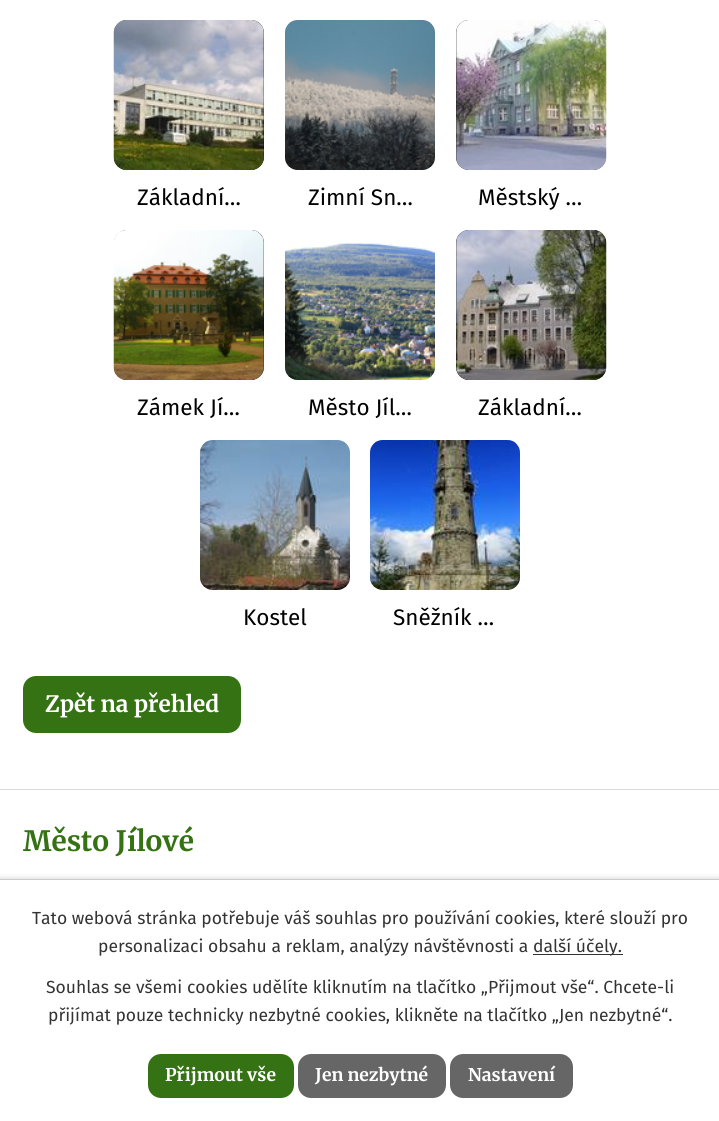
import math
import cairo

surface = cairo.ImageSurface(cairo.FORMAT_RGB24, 719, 1121)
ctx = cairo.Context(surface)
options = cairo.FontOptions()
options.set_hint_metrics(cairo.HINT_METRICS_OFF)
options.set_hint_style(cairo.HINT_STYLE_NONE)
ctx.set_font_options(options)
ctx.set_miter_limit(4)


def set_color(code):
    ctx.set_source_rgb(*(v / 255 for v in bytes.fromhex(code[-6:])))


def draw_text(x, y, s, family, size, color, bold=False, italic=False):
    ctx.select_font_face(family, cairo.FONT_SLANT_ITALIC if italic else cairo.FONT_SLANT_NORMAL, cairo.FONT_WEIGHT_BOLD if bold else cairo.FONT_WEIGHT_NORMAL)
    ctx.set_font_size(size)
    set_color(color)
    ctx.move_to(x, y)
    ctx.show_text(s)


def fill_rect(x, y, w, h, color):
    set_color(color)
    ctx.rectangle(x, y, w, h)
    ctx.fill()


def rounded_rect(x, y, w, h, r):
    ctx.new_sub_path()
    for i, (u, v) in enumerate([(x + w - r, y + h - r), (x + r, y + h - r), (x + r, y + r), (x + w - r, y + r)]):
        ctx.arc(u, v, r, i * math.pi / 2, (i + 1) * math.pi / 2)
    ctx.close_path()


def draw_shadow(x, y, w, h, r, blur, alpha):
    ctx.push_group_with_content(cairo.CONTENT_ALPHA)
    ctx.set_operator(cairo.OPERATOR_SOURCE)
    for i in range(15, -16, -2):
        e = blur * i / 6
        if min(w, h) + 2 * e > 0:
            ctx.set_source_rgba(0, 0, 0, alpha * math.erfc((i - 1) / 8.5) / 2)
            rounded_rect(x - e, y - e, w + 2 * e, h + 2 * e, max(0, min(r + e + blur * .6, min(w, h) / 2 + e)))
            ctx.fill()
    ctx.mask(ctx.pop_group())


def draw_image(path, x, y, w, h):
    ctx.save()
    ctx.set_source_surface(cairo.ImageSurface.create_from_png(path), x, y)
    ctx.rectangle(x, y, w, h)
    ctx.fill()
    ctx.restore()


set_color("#ffffff")
ctx.paint()
set_color("#000000")
rounded_rect(114, 20, 150, 150, 13)
ctx.fill()
draw_image("assets/img1.png", 113, 20, 151, 150)
draw_text(137, 205, "Základní…", "Fira Sans", 22.5, "#000000")
draw_image("assets/img2.png", 285, 20, 150, 150)
draw_text(308, 205, "Zimní Sn…", "Fira Sans", 22.5, "#000000")
rounded_rect(456, 20, 150, 150, 13)
ctx.fill()
draw_image("assets/img3.png", 456, 20, 151, 150)
draw_text(478, 205, "Městský …", "Fira Sans", 22.5, "#000000")
rounded_rect(114, 230, 150, 150, 13)
ctx.fill()
draw_image("assets/img4.png", 113, 230, 151, 150)
draw_text(137, 415, "Zámek Jí…", "Fira Sans", 22.5, "#000000")
draw_image("assets/img5.png", 285, 230, 150, 150)
draw_text(308, 415, "Město Jíl…", "Fira Sans", 22.5, "#000000")
rounded_rect(456, 230, 150, 150, 13)
ctx.fill()
draw_image("assets/img6.png", 456, 230, 151, 150)
draw_text(478, 415, "Základní…", "Fira Sans", 22.5, "#000000")
draw_image("assets/img7.png", 200, 440, 150, 150)
draw_text(243, 625, "Kostel", "Fira Sans", 22.5, "#000000")
draw_image("assets/img8.png", 370, 440, 150, 150)
draw_text(393, 625, "Sněžník …", "Fira Sans", 22.5, "#000000")
set_color("#357213")
rounded_rect(23, 676, 218, 57, 13)
ctx.fill()
draw_text(45, 712, "Zpět na přehled", "Merriweather", 22.5, "#ffffff", bold=True)
fill_rect(0, 789, 719, 1, "#d9d9d9")
draw_text(23, 851, "Město Jílové", "Merriweather", 28, "#357213", bold=True)
set_color("#000000")
draw_shadow(0, 879, 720, 242, 0, 3, 0.2)
fill_rect(0, 880, 719, 241, "#ffffff")
fill_rect(0, 879, 719, 1, "#cccccc")
draw_text(32, 924, "Tato webová stránka potřebuje váš souhlas pro používání cookies, které slouží pro", "Fira Sans", 17.5, "#333333")
draw_text(98, 952, "personalizaci obsahu a reklam, analýzy návštěvnosti a", "Fira Sans", 17.5, "#333333")
fill_rect(533, 954, 90, 1, "#333333")
draw_text(533, 952, "další účely.", "Fira Sans", 17.5, "#333333")
draw_text(46, 993, "Souhlas se všemi cookies udělíte kliknutím na tlačítko „Přijmout vše“. Chcete-li", "Fira Sans", 17.5, "#333333")
draw_text(48, 1021, "přijímat pouze technicky nezbytné cookies, klikněte na tlačítko „Jen nezbytné“.", "Fira Sans", 17.5, "#333333")
set_color("#357213")
rounded_rect(148, 1054, 146, 44, 13)
ctx.fill()
draw_text(165, 1081, "Přijmout vše", "Merriweather", 17.5, "#ffffff", bold=True)
set_color("#666666")
rounded_rect(298, 1054, 148, 44, 13)
ctx.fill()
draw_text(315, 1081, "Jen nezbytné", "Merriweather", 17.5, "#ffffff", bold=True)
set_color("#666666")
rounded_rect(450, 1054, 123, 44, 13)
ctx.fill()
draw_text(468, 1081, "Nastavení", "Merriweather", 17.5, "#ffffff", bold=True)
surface.write_to_png("output.png")
